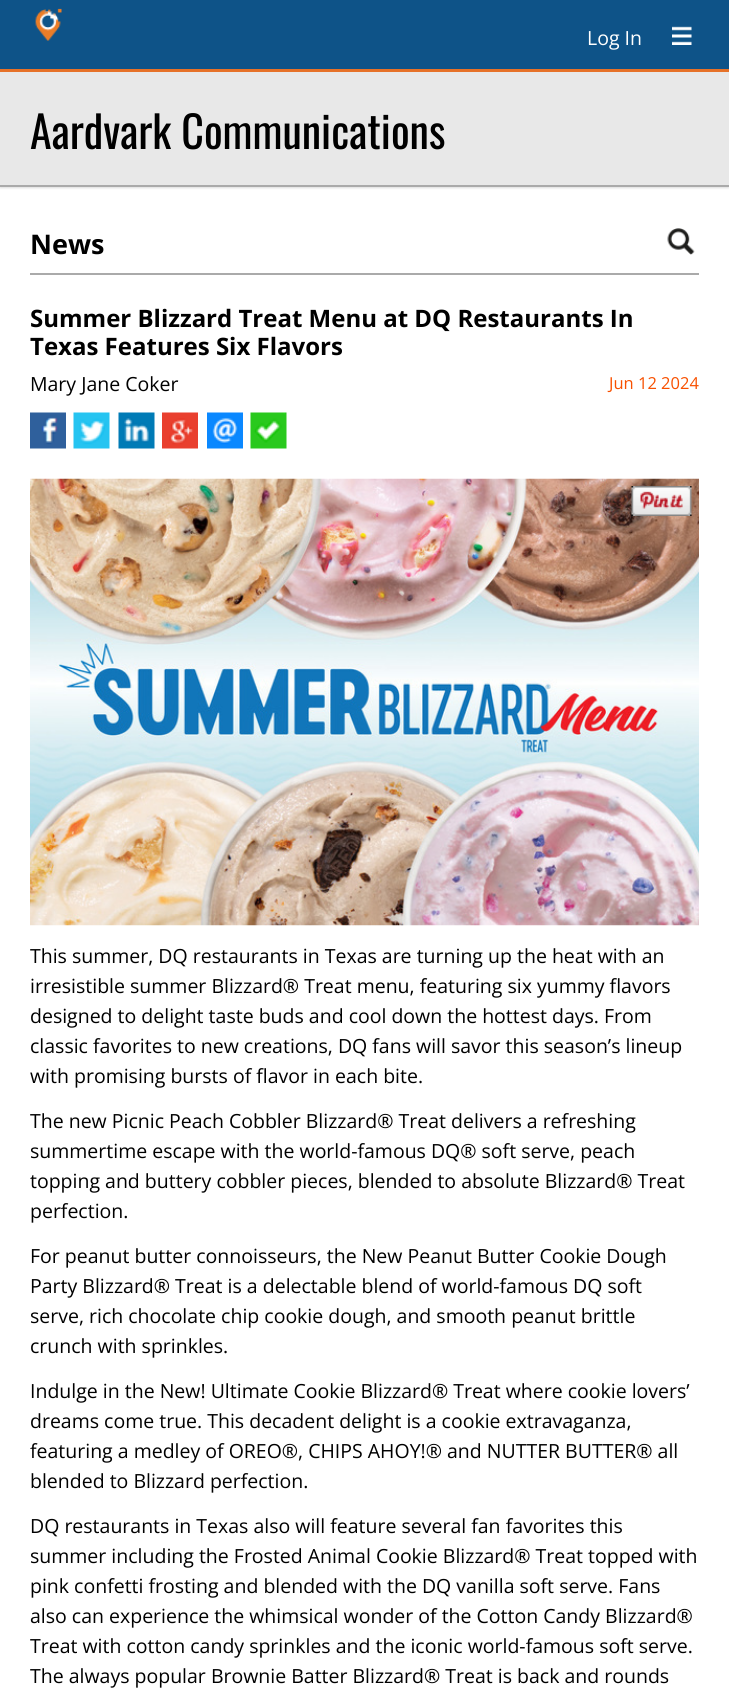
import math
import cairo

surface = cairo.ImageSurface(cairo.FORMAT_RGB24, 729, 1700)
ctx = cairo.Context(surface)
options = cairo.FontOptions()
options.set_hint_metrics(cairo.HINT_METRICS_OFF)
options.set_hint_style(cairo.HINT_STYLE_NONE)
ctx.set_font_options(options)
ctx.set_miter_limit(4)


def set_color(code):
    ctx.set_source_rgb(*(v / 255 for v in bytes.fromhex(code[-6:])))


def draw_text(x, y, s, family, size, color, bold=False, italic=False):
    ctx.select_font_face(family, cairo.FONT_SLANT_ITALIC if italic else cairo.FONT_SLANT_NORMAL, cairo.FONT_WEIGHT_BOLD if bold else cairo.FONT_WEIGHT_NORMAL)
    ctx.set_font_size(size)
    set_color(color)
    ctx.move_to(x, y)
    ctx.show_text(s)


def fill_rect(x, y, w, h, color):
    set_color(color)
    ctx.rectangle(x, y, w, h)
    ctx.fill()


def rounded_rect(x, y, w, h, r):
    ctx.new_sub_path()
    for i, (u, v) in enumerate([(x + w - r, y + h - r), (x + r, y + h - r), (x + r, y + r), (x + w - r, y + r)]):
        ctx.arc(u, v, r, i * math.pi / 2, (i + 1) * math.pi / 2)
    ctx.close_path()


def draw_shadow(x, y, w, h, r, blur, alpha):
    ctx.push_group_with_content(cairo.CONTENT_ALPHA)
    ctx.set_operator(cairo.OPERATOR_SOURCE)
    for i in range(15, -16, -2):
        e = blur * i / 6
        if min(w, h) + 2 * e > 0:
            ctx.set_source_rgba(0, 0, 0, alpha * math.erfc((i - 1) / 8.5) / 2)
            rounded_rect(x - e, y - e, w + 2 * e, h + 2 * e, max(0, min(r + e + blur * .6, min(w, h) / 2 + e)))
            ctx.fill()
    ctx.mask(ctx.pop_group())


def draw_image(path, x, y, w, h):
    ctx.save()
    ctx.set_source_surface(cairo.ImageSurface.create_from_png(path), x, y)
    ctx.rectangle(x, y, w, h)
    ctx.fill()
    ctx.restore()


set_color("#ffffff")
ctx.paint()
fill_rect(0, 0, 729, 69, "#0e5388")
fill_rect(0, 69, 729, 3, "#e67127")
draw_image("assets/img1.png", 35, 8, 27, 33)
draw_text(587, 45, "Log In", "Open Sans", 19.5, "#ffffff")
draw_image("assets/img2.png", 672, 26, 20, 19)
set_color("#dddddd")
draw_shadow(0, 74, 729, 114, 0, 1, 1)
fill_rect(0, 72, 729, 113, "#e8e8e8")
fill_rect(0, 185, 729, 2, "#aaaaaa")
draw_text(30, 149, "Aardvark Communications", "Oswald", 44, "#000000")
fill_rect(30, 273, 669, 2, "#aaaaaa")
draw_text(30, 254, "News", "Open Sans", 27, "#000000", bold=True)
draw_image("assets/img3.png", 667, 228, 28, 27)
draw_text(30, 327, "Summer Blizzard Treat Menu at DQ Restaurants In", "Open Sans", 24, "#000000", bold=True)
draw_text(30, 355, "Texas Features Six Flavors", "Open Sans", 24, "#000000", bold=True)
draw_text(30, 391, "Mary Jane Coker", "Open Sans", 19.5, "#000000")
draw_text(609, 389, "Jun 12 2024", "Open Sans", 16.5, "#f85000")
draw_image("assets/img4.png", 30, 412, 36, 37)
draw_image("assets/img5.png", 73, 412, 37, 37)
draw_image("assets/img6.png", 118, 412, 37, 37)
draw_image("assets/img7.png", 162, 412, 36, 37)
draw_image("assets/img8.png", 207, 412, 36, 37)
draw_image("assets/img9.png", 250, 412, 37, 37)
draw_image("assets/img10.png", 30, 478, 669, 448)
draw_image("assets/img11.png", 631, 486, 61, 30)
draw_text(30, 963, "This summer, DQ restaurants in Texas are turning up the heat with an", "Open Sans", 19.5, "#000000")
draw_text(30, 993, "irresistible summer Blizzard® Treat menu, featuring six yummy flavors", "Open Sans", 19.5, "#000000")
draw_text(30, 1023, "designed to delight taste buds and cool down the hottest days. From", "Open Sans", 19.5, "#000000")
draw_text(30, 1053, "classic favorites to new creations, DQ fans will savor this season’s lineup", "Open Sans", 19.5, "#000000")
draw_text(30, 1083, "with promising bursts of flavor in each bite.", "Open Sans", 19.5, "#000000")
draw_text(30, 1128, "The new Picnic Peach Cobbler Blizzard® Treat delivers a refreshing", "Open Sans", 19.5, "#000000")
draw_text(30, 1158, "summertime escape with the world-famous DQ® soft serve, peach", "Open Sans", 19.5, "#000000")
draw_text(30, 1188, "topping and buttery cobbler pieces, blended to absolute Blizzard® Treat", "Open Sans", 19.5, "#000000")
draw_text(30, 1218, "perfection.", "Open Sans", 19.5, "#000000")
draw_text(30, 1263, "For peanut butter connoisseurs, the New Peanut Butter Cookie Dough", "Open Sans", 19.5, "#000000")
draw_text(30, 1293, "Party Blizzard® Treat is a delectable blend of world-famous DQ soft", "Open Sans", 19.5, "#000000")
draw_text(30, 1323, "serve, rich chocolate chip cookie dough, and smooth peanut brittle", "Open Sans", 19.5, "#000000")
draw_text(30, 1353, "crunch with sprinkles.", "Open Sans", 19.5, "#000000")
draw_text(30, 1398, "Indulge in the New! Ultimate Cookie Blizzard® Treat where cookie lovers’", "Open Sans", 19.5, "#000000")
draw_text(30, 1428, "dreams come true. This decadent delight is a cookie extravaganza,", "Open Sans", 19.5, "#000000")
draw_text(30, 1458, "featuring a medley of OREO®, CHIPS AHOY!® and NUTTER BUTTER® all", "Open Sans", 19.5, "#000000")
draw_text(30, 1488, "blended to Blizzard perfection.", "Open Sans", 19.5, "#000000")
draw_text(30, 1533, "DQ restaurants in Texas also will feature several fan favorites this", "Open Sans", 19.5, "#000000")
draw_text(30, 1563, "summer including the Frosted Animal Cookie Blizzard® Treat topped with", "Open Sans", 19.5, "#000000")
draw_text(30, 1593, "pink confetti frosting and blended with the DQ vanilla soft serve. Fans", "Open Sans", 19.5, "#000000")
draw_text(30, 1623, "also can experience the whimsical wonder of the Cotton Candy Blizzard®", "Open Sans", 19.5, "#000000")
draw_text(30, 1653, "Treat with cotton candy sprinkles and the iconic world-famous soft serve.", "Open Sans", 19.5, "#000000")
draw_text(30, 1683, "The always popular Brownie Batter Blizzard® Treat is back and rounds", "Open Sans", 19.5, "#000000")
surface.write_to_png("output.png")
